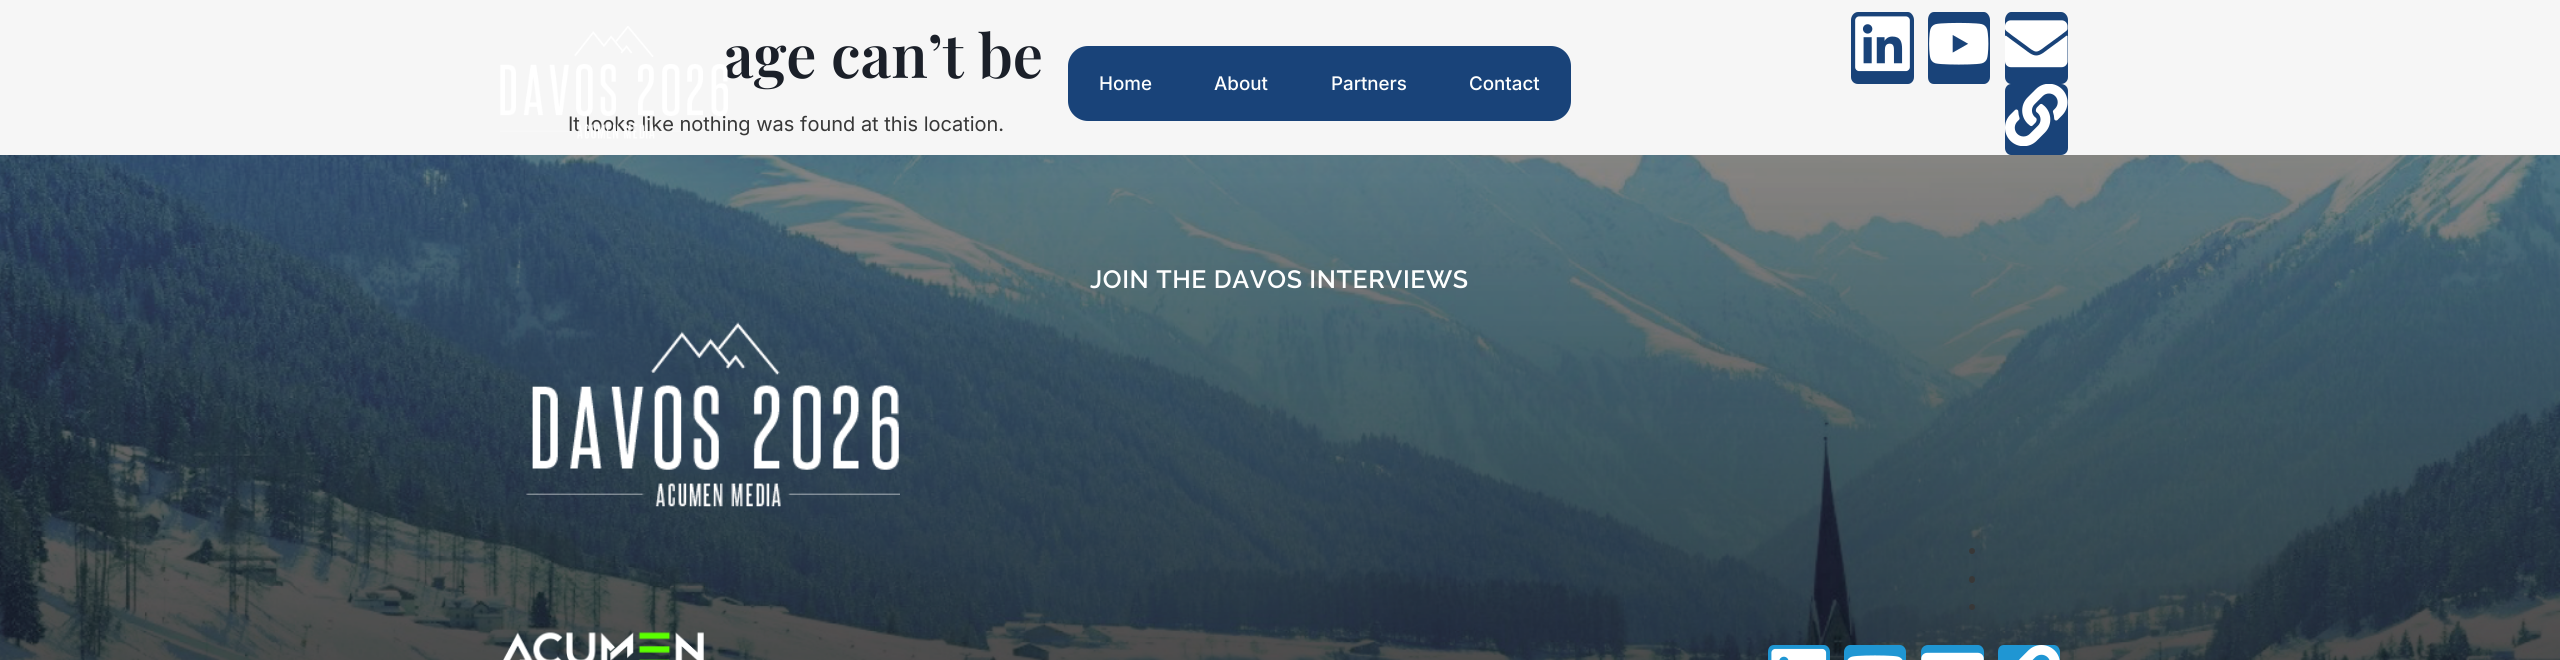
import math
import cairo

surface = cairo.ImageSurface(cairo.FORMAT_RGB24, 2560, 660)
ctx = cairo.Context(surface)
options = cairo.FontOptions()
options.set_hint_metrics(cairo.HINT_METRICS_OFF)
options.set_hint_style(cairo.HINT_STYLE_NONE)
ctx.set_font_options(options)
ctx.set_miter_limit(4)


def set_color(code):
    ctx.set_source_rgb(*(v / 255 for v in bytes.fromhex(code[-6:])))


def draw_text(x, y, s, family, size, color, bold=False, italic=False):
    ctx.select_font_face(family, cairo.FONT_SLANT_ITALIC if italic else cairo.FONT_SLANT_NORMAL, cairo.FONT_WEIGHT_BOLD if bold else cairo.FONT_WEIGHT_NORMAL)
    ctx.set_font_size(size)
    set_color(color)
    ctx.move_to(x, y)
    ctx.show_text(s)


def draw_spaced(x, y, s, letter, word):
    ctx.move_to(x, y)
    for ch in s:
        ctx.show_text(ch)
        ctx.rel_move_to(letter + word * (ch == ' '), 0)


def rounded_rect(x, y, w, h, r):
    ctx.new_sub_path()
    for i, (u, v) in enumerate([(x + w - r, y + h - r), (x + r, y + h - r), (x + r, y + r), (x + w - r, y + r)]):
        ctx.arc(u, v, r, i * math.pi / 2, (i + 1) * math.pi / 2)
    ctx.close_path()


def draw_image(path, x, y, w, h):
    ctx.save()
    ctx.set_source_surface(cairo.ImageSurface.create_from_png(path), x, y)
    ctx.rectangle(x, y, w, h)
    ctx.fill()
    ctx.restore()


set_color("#f6f6f6")
ctx.paint()
draw_text(723, 78, "age can’t be", "Playfair Display SemiBold", 60, "#1b2029")
draw_text(568, 131, "It looks like nothing was found at this location.", "Inter", 20, "#383838")
draw_image("assets/img1.png", 500, 26, 229, 113)
set_color("#194379")
rounded_rect(1068, 46, 503, 75, 20)
ctx.fill()
draw_text(1099, 90, "Home", "Inter Medium", 18.75, "#fdfefe")
draw_text(1214, 90, "About", "Inter Medium", 18.75, "#fdfefe")
draw_text(1331, 90, "Partners", "Inter Medium", 18.75, "#fdfefe")
draw_text(1469, 90, "Contact", "Inter Medium", 18.75, "#fdfefe")
set_color("#194379")
ctx.new_path()
ctx.move_to(1858, 12)
ctx.line_to(1908, 12)
ctx.curve_to(1911, 12, 1914, 16, 1914, 20)
ctx.line_to(1914, 77)
ctx.curve_to(1914, 81, 1911, 84, 1908, 84)
ctx.line_to(1858, 84)
ctx.curve_to(1854, 84, 1851, 81, 1851, 77)
ctx.line_to(1851, 20)
ctx.curve_to(1851, 16, 1854, 12, 1858, 12)
ctx.close_path()
ctx.fill()
draw_image("assets/img2.png", 1855, 16, 55, 56)
ctx.new_path()
ctx.move_to(1934, 12)
ctx.line_to(1984, 12)
ctx.curve_to(1987, 12, 1990, 16, 1990, 20)
ctx.line_to(1990, 77)
ctx.curve_to(1990, 81, 1987, 84, 1984, 84)
ctx.line_to(1934, 84)
ctx.curve_to(1930, 84, 1928, 81, 1928, 77)
ctx.line_to(1928, 20)
ctx.curve_to(1928, 16, 1930, 12, 1934, 12)
ctx.close_path()
ctx.fill()
draw_image("assets/img3.png", 1929, 22, 60, 43)
ctx.new_path()
ctx.move_to(2011, 12)
ctx.line_to(2061, 12)
ctx.curve_to(2065, 12, 2068, 16, 2068, 20)
ctx.line_to(2068, 77)
ctx.curve_to(2068, 81, 2065, 84, 2061, 84)
ctx.line_to(2011, 84)
ctx.curve_to(2008, 84, 2005, 81, 2005, 77)
ctx.line_to(2005, 20)
ctx.curve_to(2005, 16, 2008, 12, 2011, 12)
ctx.close_path()
ctx.fill()
draw_image("assets/img4.png", 2005, 20, 63, 48)
ctx.new_path()
ctx.move_to(2011, 84)
ctx.line_to(2061, 84)
ctx.curve_to(2065, 84, 2068, 87, 2068, 91)
ctx.line_to(2068, 148)
ctx.curve_to(2068, 152, 2065, 155, 2061, 155)
ctx.line_to(2011, 155)
ctx.curve_to(2008, 155, 2005, 152, 2005, 148)
ctx.line_to(2005, 91)
ctx.curve_to(2005, 87, 2008, 84, 2011, 84)
ctx.close_path()
ctx.fill()
draw_image("assets/img5.png", 2005, 84, 63, 62)
draw_image("assets/img6.png", 0, 155, 2560, 505)
ctx.select_font_face("Raleway SemiBold")
ctx.set_font_size(25)
set_color("#fdfefe")
draw_spaced(1090, 288, "JOIN THE DAVOS INTERVIEWS", 0.6, 0)
draw_image("assets/img7.png", 526, 322, 374, 185)
draw_image("assets/img8.png", 503, 632, 201, 28)
set_color("#383838")
ctx.arc(1972, 551, 3, 0, 2 * math.pi)
ctx.fill()
rounded_rect(1969, 576, 6, 7, 3)
ctx.fill()
ctx.arc(1972, 607, 3, 0, 2 * math.pi)
ctx.fill()
set_color("#1f96d3")
ctx.new_path()
ctx.move_to(1774, 645)
ctx.line_to(1824, 645)
ctx.curve_to(1827, 645, 1830, 648, 1830, 652)
ctx.line_to(1830, 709)
ctx.curve_to(1830, 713, 1827, 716, 1824, 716)
ctx.line_to(1774, 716)
ctx.curve_to(1770, 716, 1768, 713, 1768, 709)
ctx.line_to(1768, 652)
ctx.curve_to(1768, 648, 1770, 645, 1774, 645)
ctx.close_path()
ctx.fill()
draw_image("assets/img9.png", 1771, 648, 56, 12)
ctx.new_path()
ctx.move_to(1850, 645)
ctx.line_to(1900, 645)
ctx.curve_to(1903, 645, 1906, 648, 1906, 652)
ctx.line_to(1906, 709)
ctx.curve_to(1906, 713, 1903, 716, 1900, 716)
ctx.line_to(1850, 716)
ctx.curve_to(1847, 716, 1844, 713, 1844, 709)
ctx.line_to(1844, 652)
ctx.curve_to(1844, 648, 1847, 645, 1850, 645)
ctx.close_path()
ctx.fill()
draw_image("assets/img10.png", 1847, 655, 56, 5)
ctx.new_path()
ctx.move_to(1928, 645)
ctx.line_to(1978, 645)
ctx.curve_to(1981, 645, 1984, 648, 1984, 652)
ctx.line_to(1984, 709)
ctx.curve_to(1984, 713, 1981, 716, 1978, 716)
ctx.line_to(1928, 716)
ctx.curve_to(1924, 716, 1921, 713, 1921, 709)
ctx.line_to(1921, 652)
ctx.curve_to(1921, 648, 1924, 645, 1928, 645)
ctx.close_path()
ctx.fill()
draw_image("assets/img11.png", 1921, 652, 63, 8)
ctx.new_path()
ctx.move_to(2004, 645)
ctx.line_to(2054, 645)
ctx.curve_to(2057, 645, 2060, 648, 2060, 652)
ctx.line_to(2060, 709)
ctx.curve_to(2060, 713, 2057, 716, 2054, 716)
ctx.line_to(2004, 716)
ctx.curve_to(2000, 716, 1998, 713, 1998, 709)
ctx.line_to(1998, 652)
ctx.curve_to(1998, 648, 2000, 645, 2004, 645)
ctx.close_path()
ctx.fill()
draw_image("assets/img12.png", 2019, 645, 41, 15)
surface.write_to_png("output.png")
